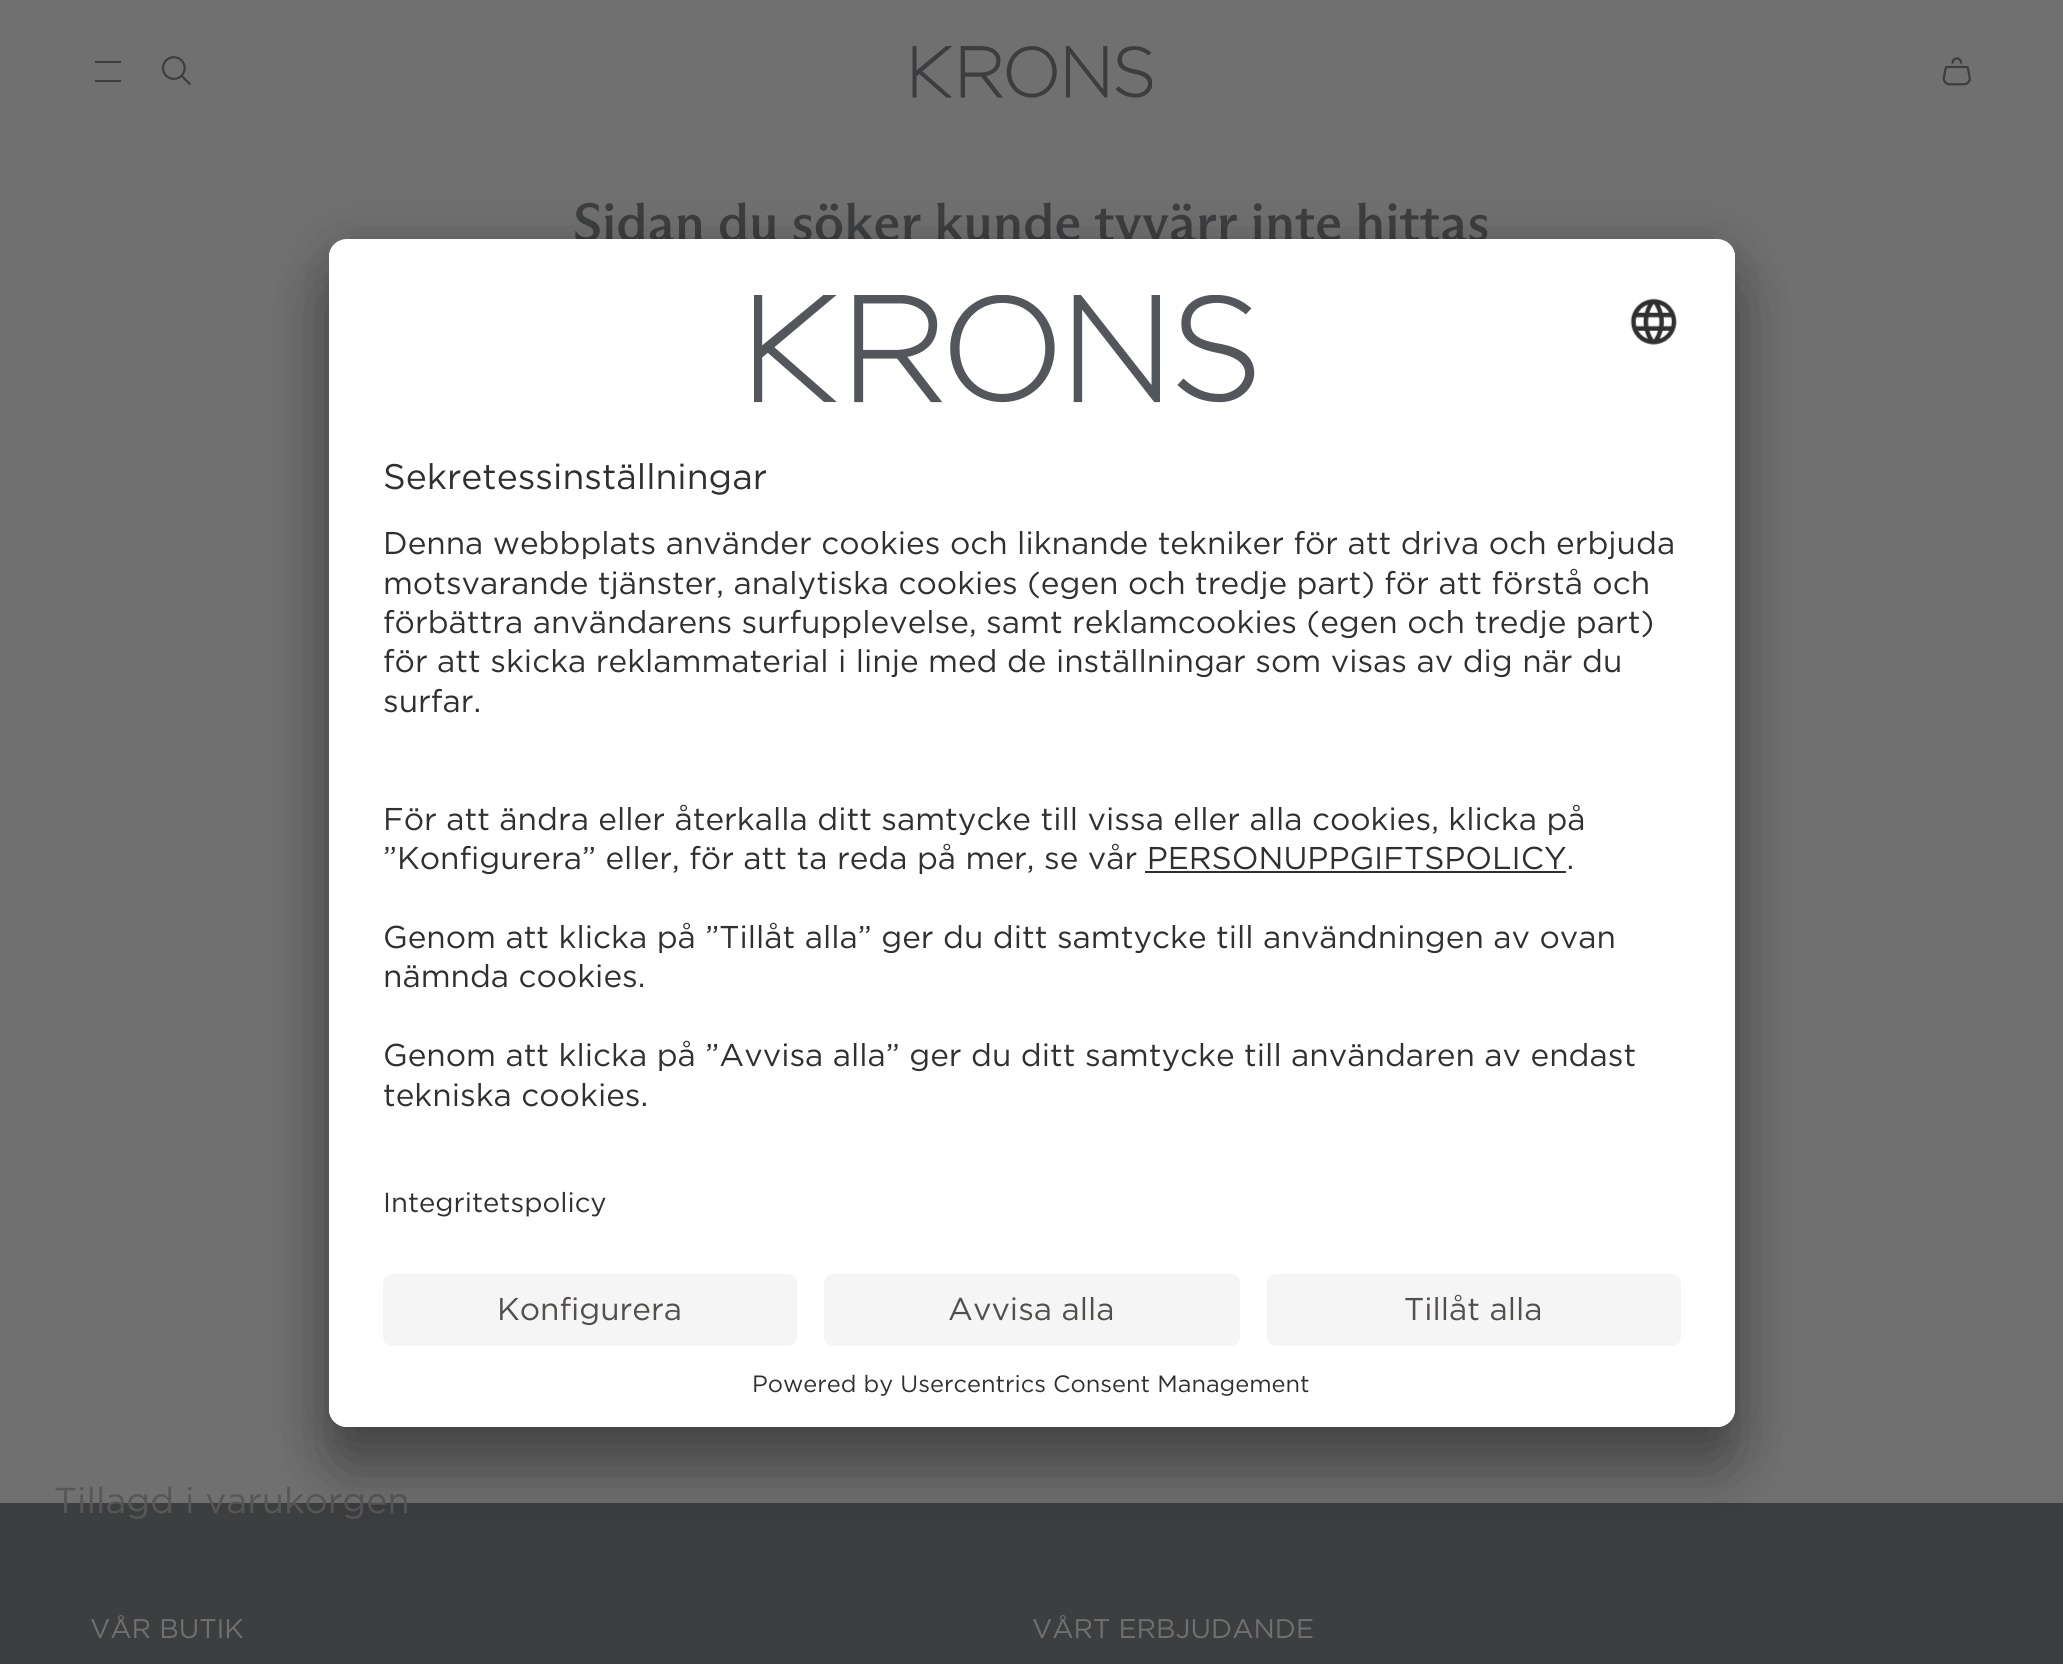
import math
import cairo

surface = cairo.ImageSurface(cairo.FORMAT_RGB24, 2063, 1664)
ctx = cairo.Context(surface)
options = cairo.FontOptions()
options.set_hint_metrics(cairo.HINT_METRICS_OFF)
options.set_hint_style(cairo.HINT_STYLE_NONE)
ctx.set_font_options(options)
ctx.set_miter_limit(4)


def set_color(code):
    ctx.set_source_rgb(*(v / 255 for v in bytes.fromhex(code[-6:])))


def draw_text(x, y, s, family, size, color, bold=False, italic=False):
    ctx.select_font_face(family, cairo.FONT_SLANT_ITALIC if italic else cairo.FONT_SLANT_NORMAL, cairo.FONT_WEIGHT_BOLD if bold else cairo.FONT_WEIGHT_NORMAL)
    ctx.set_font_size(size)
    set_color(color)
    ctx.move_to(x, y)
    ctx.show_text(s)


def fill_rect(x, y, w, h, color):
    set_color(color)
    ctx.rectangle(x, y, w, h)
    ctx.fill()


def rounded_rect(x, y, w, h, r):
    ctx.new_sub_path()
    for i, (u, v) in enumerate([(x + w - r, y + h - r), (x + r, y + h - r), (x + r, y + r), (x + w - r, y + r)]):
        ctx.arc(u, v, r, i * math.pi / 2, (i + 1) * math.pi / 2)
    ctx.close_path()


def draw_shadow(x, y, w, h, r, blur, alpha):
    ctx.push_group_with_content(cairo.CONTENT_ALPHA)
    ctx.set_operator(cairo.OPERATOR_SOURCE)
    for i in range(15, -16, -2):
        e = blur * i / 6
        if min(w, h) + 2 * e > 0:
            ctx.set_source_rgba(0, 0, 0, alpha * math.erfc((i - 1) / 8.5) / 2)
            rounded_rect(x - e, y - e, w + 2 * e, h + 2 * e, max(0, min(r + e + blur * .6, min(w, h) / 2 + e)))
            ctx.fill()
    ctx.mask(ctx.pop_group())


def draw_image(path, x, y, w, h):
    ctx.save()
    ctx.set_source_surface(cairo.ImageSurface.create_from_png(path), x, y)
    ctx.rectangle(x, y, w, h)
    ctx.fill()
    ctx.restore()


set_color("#707070")
ctx.paint()
draw_image("assets/img1.png", 912, 46, 240, 52)
fill_rect(95, 61, 26, 2, "#3d3e3f")
fill_rect(95, 80, 26, 2, "#3d3e3f")
draw_image("assets/img2.png", 161, 56, 30, 30)
draw_image("assets/img3.png", 1942, 57, 29, 29)
draw_text(573, 241, "Sidan du söker kunde tyvärr inte hittas", "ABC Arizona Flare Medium", 54, "#3d3e3f")
fill_rect(0, 1503, 2063, 161, "#3d3e3f")
draw_text(54, 1513, "Tillagd i varukorgen", "Gotham", 36, "#575758")
draw_text(90, 1638, "VÅR BUTIK", "Gotham", 27, "#707070")
draw_text(1032, 1638, "VÅRT ERBJUDANDE", "Gotham", 27, "#707070")
set_color("#000000")
draw_shadow(329, 284, 1406, 1188, 18, 31.5, 0.3)
draw_shadow(329, 250, 1406, 1188, 18, 29, 0.22)
set_color("#ffffff")
rounded_rect(329, 239, 1406, 1188, 18)
ctx.fill()
ctx.save()
rounded_rect(329, 239, 1406, 1188, 18)
ctx.clip()
ctx.new_path()
ctx.move_to(347, 239)
ctx.line_to(1717, 239)
ctx.curve_to(1727, 239, 1735, 247, 1735, 257)
ctx.line_to(1735, 1256)
ctx.line_to(329, 1256)
ctx.line_to(329, 257)
ctx.curve_to(329, 247, 337, 239, 347, 239)
ctx.close_path()
ctx.clip()
fill_rect(329, 241, 1406, 1015, "#ffffff")
ctx.restore()
draw_image("assets/img4.png", 754, 295, 501, 108)
draw_image("assets/img5.png", 1630, 298, 47, 47)
draw_text(383, 489, "Sekretessinställningar", "Gotham", 35.5, "#303030")
draw_text(383, 554, "Denna webbplats använder cookies och liknande tekniker för att driva och erbjuda", "Gotham", 31.5, "#303030")
draw_text(383, 594, "motsvarande tjänster, analytiska cookies (egen och tredje part) för att förstå och", "Gotham", 31.5, "#303030")
draw_text(383, 633, "förbättra användarens surfupplevelse, samt reklamcookies (egen och tredje part)", "Gotham", 31.5, "#303030")
draw_text(383, 672, "för att skicka reklammaterial i linje med de inställningar som visas av dig när du", "Gotham", 31.5, "#303030")
draw_text(383, 712, "surfar.", "Gotham", 31.5, "#303030")
draw_text(383, 830, "För att ändra eller återkalla ditt samtycke till vissa eller alla cookies, klicka på", "Gotham", 31.5, "#303030")
draw_text(383, 869, "”Konfigurera” eller, för att ta reda på mer, se vår PERSONUPPGIFTSPOLICY.", "Gotham", 31.5, "#303030")
fill_rect(1145, 871, 421, 2, "#303030")
draw_text(383, 948, "Genom att klicka på ”Tillåt alla” ger du ditt samtycke till användningen av ovan", "Gotham", 31.5, "#303030")
draw_text(383, 987, "nämnda cookies.", "Gotham", 31.5, "#303030")
draw_text(383, 1066, "Genom att klicka på ”Avvisa alla” ger du ditt samtycke till användaren av endast", "Gotham", 31.5, "#303030")
draw_text(383, 1106, "tekniska cookies.", "Gotham", 31.5, "#303030")
draw_text(383, 1212, "Integritetspolicy", "Gotham", 27.5, "#303030")
set_color("#ffffff")
ctx.new_path()
ctx.move_to(329, 1256)
ctx.line_to(1735, 1256)
ctx.line_to(1735, 1409)
ctx.curve_to(1735, 1419, 1727, 1427, 1717, 1427)
ctx.line_to(347, 1427)
ctx.curve_to(337, 1427, 329, 1419, 329, 1409)
ctx.close_path()
ctx.fill()
set_color("#f5f5f5")
rounded_rect(383, 1274, 414, 72, 9)
ctx.fill()
draw_text(497, 1320, "Konfigurera", "Gotham", 31.5, "#52504d")
set_color("#f5f5f5")
rounded_rect(824, 1274, 416, 72, 9)
ctx.fill()
draw_text(948, 1320, "Avvisa alla", "Gotham", 31.5, "#52504d")
set_color("#f5f5f5")
rounded_rect(1267, 1274, 414, 72, 9)
ctx.fill()
draw_text(1404, 1320, "Tillåt alla", "Gotham", 31.5, "#52504d")
draw_text(752, 1392, "Powered by Usercentrics Consent Management", "Gotham", 23.6, "#303030")
surface.write_to_png("output.png")
